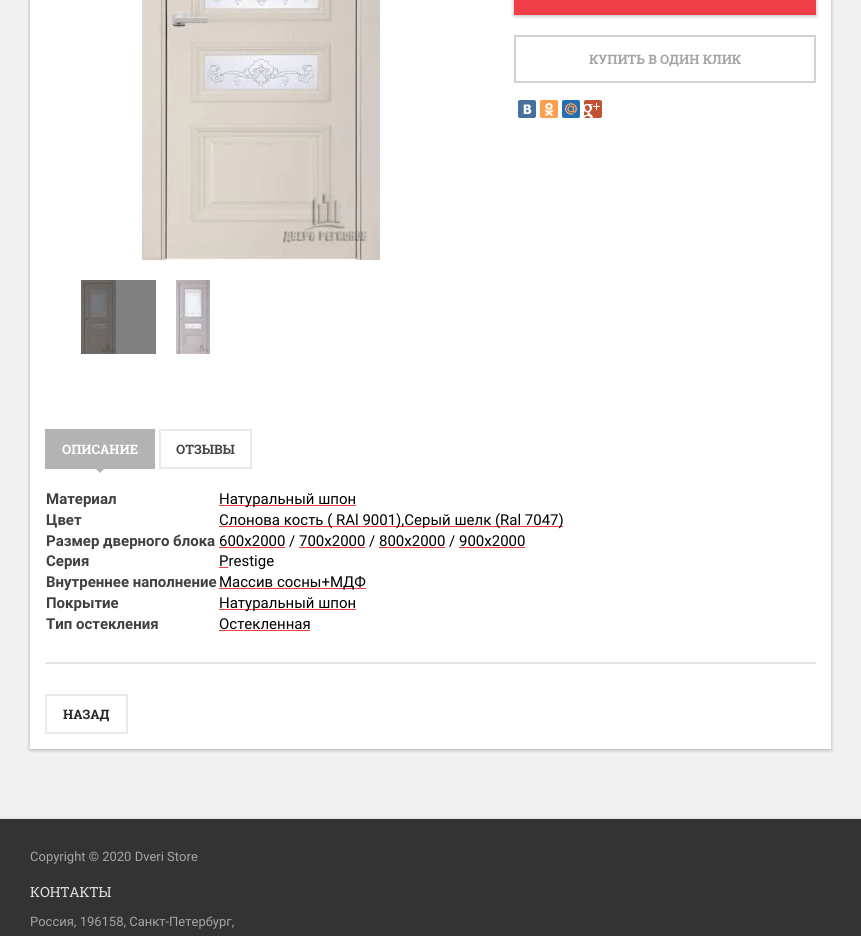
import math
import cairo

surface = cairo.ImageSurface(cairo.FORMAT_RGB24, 861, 936)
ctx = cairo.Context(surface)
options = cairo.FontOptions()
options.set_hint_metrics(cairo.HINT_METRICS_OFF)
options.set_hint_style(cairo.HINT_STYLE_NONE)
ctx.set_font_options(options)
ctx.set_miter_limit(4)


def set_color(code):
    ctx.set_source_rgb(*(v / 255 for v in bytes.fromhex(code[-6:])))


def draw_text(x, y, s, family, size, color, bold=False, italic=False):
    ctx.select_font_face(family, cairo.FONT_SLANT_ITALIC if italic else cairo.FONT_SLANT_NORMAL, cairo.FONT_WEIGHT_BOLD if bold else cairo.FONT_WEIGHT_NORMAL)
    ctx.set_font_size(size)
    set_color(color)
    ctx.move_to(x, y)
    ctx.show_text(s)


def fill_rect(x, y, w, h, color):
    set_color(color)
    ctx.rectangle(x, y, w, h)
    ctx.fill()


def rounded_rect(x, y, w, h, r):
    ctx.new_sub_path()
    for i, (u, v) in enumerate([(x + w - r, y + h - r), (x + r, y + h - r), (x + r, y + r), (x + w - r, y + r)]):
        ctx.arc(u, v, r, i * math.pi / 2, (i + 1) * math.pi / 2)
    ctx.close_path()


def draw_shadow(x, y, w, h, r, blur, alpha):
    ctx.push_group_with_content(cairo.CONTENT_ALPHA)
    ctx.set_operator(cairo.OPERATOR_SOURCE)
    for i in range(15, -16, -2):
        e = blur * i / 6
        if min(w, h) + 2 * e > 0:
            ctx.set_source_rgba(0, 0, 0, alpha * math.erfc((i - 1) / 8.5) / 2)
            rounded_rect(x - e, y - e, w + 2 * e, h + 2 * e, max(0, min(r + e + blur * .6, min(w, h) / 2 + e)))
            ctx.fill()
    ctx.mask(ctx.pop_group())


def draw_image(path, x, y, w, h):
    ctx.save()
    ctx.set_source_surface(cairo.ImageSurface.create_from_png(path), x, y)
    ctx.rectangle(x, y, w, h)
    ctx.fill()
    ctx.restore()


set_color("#f1f1f1")
ctx.paint()
set_color("#000000")
draw_shadow(30, -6, 801, 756, 0, 2, 0.28)
fill_rect(30, 0, 801, 749, "#ffffff")
fill_rect(116, 280, 40, 74, "#808080")
draw_image("assets/img1.png", 142, 0, 238, 260)
draw_image("assets/img2.png", 81, 280, 35, 74)
draw_image("assets/img3.png", 176, 280, 34, 74)
set_color("#000000")
draw_shadow(514, -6, 302, 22, 0, 2, 0.28)
fill_rect(514, 0, 302, 15, "#ef3e46")
ctx.rectangle(515, 36, 300, 46)
set_color("#d2d2d2")
ctx.stroke()
draw_text(589, 64, "КУПИТЬ В ОДИН КЛИК", "Roboto Slab", 13, "#a5a5a5", bold=True)
set_color("#48729e")
rounded_rect(518, 100, 18, 18, 2)
ctx.fill()
draw_image("assets/img4.png", 523, 104, 9, 10)
set_color("#ff9f4d")
rounded_rect(540, 100, 18, 18, 2)
ctx.fill()
draw_image("assets/img5.png", 545, 103, 8, 13)
set_color("#226eb7")
rounded_rect(562, 100, 18, 18, 2)
ctx.fill()
draw_image("assets/img6.png", 565, 103, 12, 12)
set_color("#c25234")
rounded_rect(584, 100, 18, 18, 2)
ctx.fill()
draw_image("assets/img7.png", 584, 103, 16, 15)
fill_rect(45, 429, 110, 40, "#b3b3b3")
draw_text(62, 454, "ОПИСАНИЕ", "Roboto Slab", 13, "#ffffff", bold=True)
set_color("#b3b3b3")
ctx.new_path()
ctx.move_to(96, 469)
ctx.line_to(104, 469)
ctx.line_to(100, 473)
ctx.close_path()
ctx.fill()
ctx.rectangle(160, 430, 91, 38)
set_color("#e9e9e9")
ctx.stroke()
draw_text(176, 454, "ОТЗЫВЫ", "Roboto Slab", 13, "#474747", bold=True)
draw_text(46, 504, "Материал", "Roboto", 15, "#404040", bold=True)
fill_rect(219, 505, 137, 1, "#ef3e46")
draw_text(219, 504, "Натуральный шпон", "Roboto", 15, "#000000")
draw_text(46, 525, "Цвет", "Roboto", 15, "#404040", bold=True)
fill_rect(219, 526, 344, 1, "#ef3e46")
draw_text(219, 525, "Слонова кость ( RAl 9001),Серый шелк (Ral 7047)", "Roboto", 15, "#000000")
draw_text(46, 546, "Размер дверного блока", "Roboto", 15, "#404040", bold=True)
draw_text(219, 546, "600x2000 / 700x2000 / 800x2000 / 900x2000", "Roboto", 15, "#000000")
fill_rect(219, 547, 66, 1, "#ef3e46")
fill_rect(299, 547, 66, 1, "#ef3e46")
fill_rect(379, 547, 66, 1, "#ef3e46")
fill_rect(459, 547, 66, 1, "#ef3e46")
draw_text(46, 566, "Серия", "Roboto", 15, "#404040", bold=True)
fill_rect(219, 567, 9, 1, "#ef3e46")
draw_text(219, 566, "Prestige", "Roboto", 15, "#000000")
draw_text(46, 587, "Внутреннее наполнение", "Roboto", 15, "#404040", bold=True)
fill_rect(219, 588, 147, 1, "#ef3e46")
draw_text(219, 587, "Массив сосны+МДФ", "Roboto", 15, "#000000")
draw_text(46, 608, "Покрытие", "Roboto", 15, "#404040", bold=True)
fill_rect(219, 609, 137, 1, "#ef3e46")
draw_text(219, 608, "Натуральный шпон", "Roboto", 15, "#000000")
draw_text(46, 629, "Тип остекления", "Roboto", 15, "#404040", bold=True)
draw_text(219, 629, "Остекленная", "Roboto", 15, "#000000")
fill_rect(219, 630, 91, 1, "#ef3e46")
fill_rect(45, 662, 771, 2, "#e6e6e6")
ctx.rectangle(46, 695, 81, 38)
set_color("#e9e9e9")
ctx.stroke()
draw_text(63, 719, "НАЗАД", "Roboto Slab", 13, "#262626", bold=True)
set_color("#000000")
draw_shadow(0, 820, 861, 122, 0, 2, 0.28)
fill_rect(0, 819, 861, 117, "#333333")
draw_text(30, 861, "Copyright © 2020 Dveri Store", "Roboto", 13, "#a5a5a5")
draw_text(30, 897, "КОНТАКТЫ", "Roboto Slab", 14, "#e0e0e0")
draw_text(30, 926, "Россия, 196158, Санкт-Петербург,", "Roboto", 13, "#a5a5a5")
surface.write_to_png("output.png")
